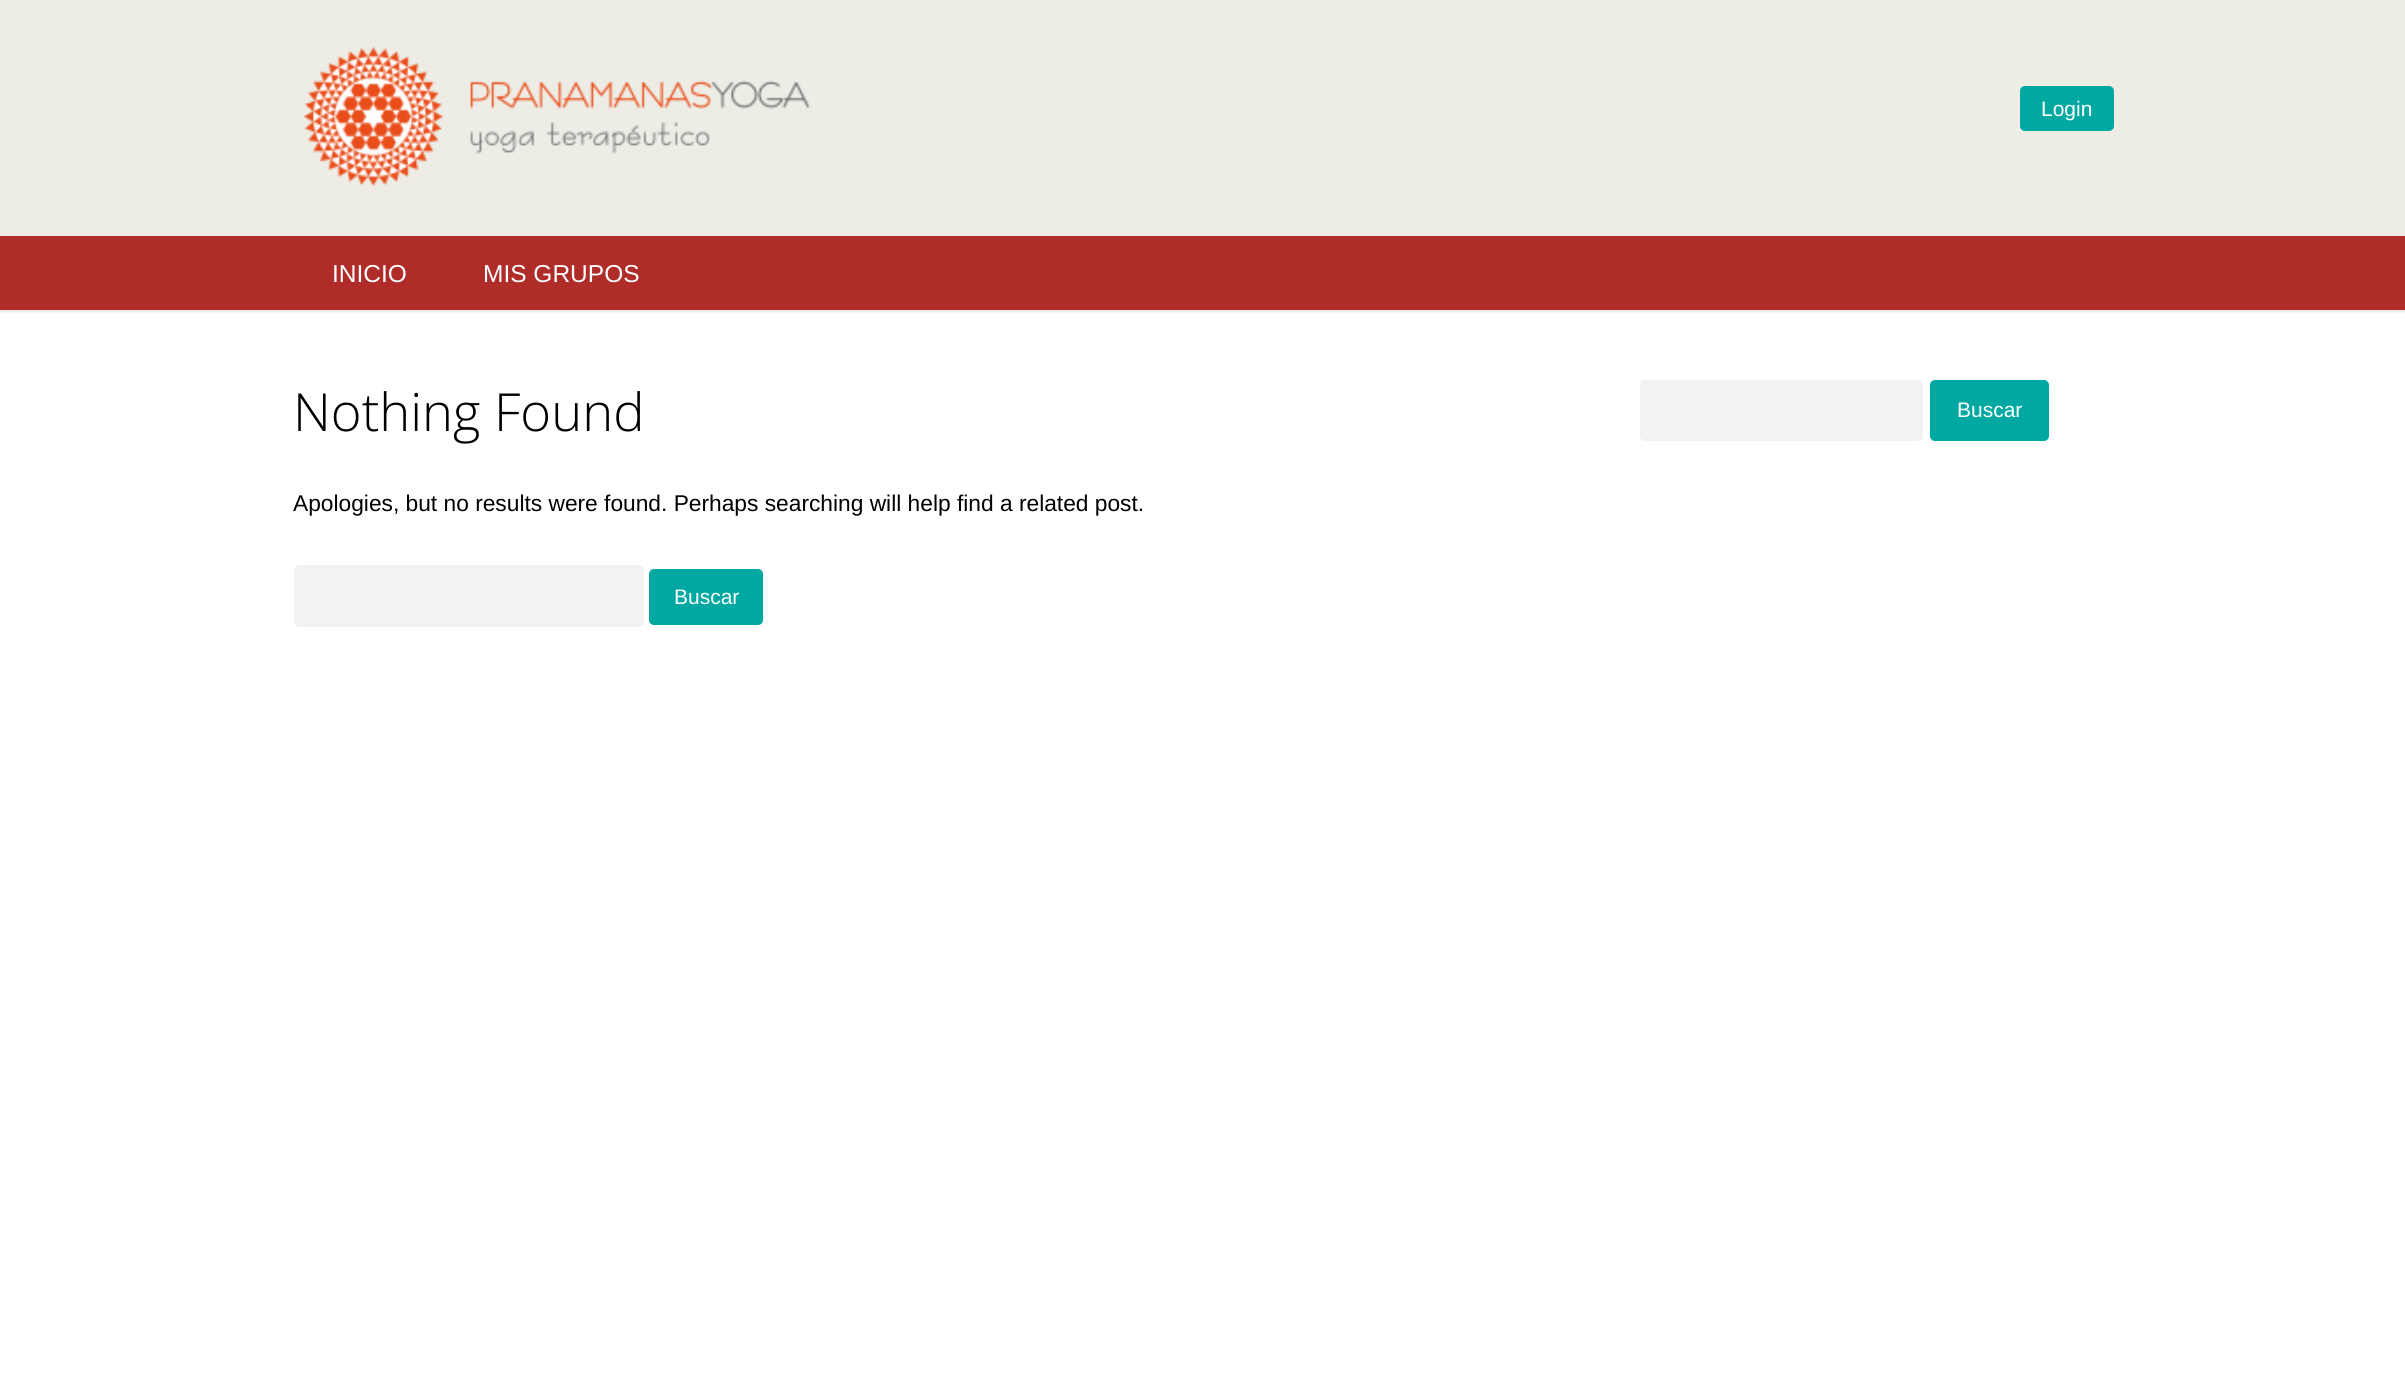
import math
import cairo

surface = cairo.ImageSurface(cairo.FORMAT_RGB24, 2405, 1378)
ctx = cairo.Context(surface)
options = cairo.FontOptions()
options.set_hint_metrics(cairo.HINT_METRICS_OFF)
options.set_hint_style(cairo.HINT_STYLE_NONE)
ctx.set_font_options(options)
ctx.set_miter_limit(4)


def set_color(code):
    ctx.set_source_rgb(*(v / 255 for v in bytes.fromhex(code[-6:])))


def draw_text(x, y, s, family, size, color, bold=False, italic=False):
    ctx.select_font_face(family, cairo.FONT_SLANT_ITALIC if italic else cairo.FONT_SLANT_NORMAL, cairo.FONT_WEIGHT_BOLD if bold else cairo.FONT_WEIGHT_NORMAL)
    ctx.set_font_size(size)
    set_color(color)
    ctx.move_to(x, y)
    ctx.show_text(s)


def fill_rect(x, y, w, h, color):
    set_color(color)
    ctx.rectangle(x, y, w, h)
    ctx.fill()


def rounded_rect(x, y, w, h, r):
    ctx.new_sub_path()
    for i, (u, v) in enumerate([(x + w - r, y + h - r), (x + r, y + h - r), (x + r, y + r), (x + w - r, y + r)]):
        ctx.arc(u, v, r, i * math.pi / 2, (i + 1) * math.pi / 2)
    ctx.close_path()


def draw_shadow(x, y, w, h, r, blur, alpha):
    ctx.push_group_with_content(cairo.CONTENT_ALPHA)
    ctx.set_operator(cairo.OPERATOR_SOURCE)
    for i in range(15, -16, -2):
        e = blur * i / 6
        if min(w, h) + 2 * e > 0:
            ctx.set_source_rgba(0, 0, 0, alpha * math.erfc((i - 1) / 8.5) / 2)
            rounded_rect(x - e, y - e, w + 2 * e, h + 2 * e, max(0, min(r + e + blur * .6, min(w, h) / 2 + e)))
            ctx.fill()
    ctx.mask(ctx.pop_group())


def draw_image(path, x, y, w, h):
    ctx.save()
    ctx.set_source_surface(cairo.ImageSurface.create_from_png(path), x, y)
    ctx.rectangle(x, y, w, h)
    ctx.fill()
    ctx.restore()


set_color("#ffffff")
ctx.paint()
set_color("#000000")
draw_shadow(0, 2, 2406, 310, 0, 1, 0.1)
fill_rect(0, 0, 2405, 236, "#edede6")
draw_image("assets/img1.png", 303, 46, 508, 140)
set_color("#00a8a2")
rounded_rect(2020, 86, 94, 45, 5)
ctx.fill()
draw_text(2041, 116, "Login", "Liberation Sans", 21, "#ffffff")
fill_rect(0, 236, 2405, 74, "#af2c28")
draw_text(332, 282, "INICIO", "Liberation Sans", 24.5, "#ffffff")
draw_text(483, 282, "MIS GRUPOS", "Liberation Sans", 24.5, "#ffffff")
draw_text(293, 431, "Nothing Found", "Open Sans Light", 52.5, "#000000")
draw_text(293, 511, "Apologies, but no results were found. Perhaps searching will help find a related post.", "Liberation Sans", 22.75, "#000000")
set_color("#f2f2f2")
rounded_rect(294, 565, 350, 62, 5)
ctx.fill()
set_color("#00a8a2")
rounded_rect(649, 569, 114, 56, 5)
ctx.fill()
draw_text(674, 604, "Buscar", "Liberation Sans", 21, "#ffffff")
set_color("#f2f2f2")
rounded_rect(1640, 380, 283, 61, 5)
ctx.fill()
set_color("#00a8a2")
rounded_rect(1930, 380, 119, 61, 5)
ctx.fill()
draw_text(1957, 417, "Buscar", "Liberation Sans", 21, "#ffffff")
surface.write_to_png("output.png")
